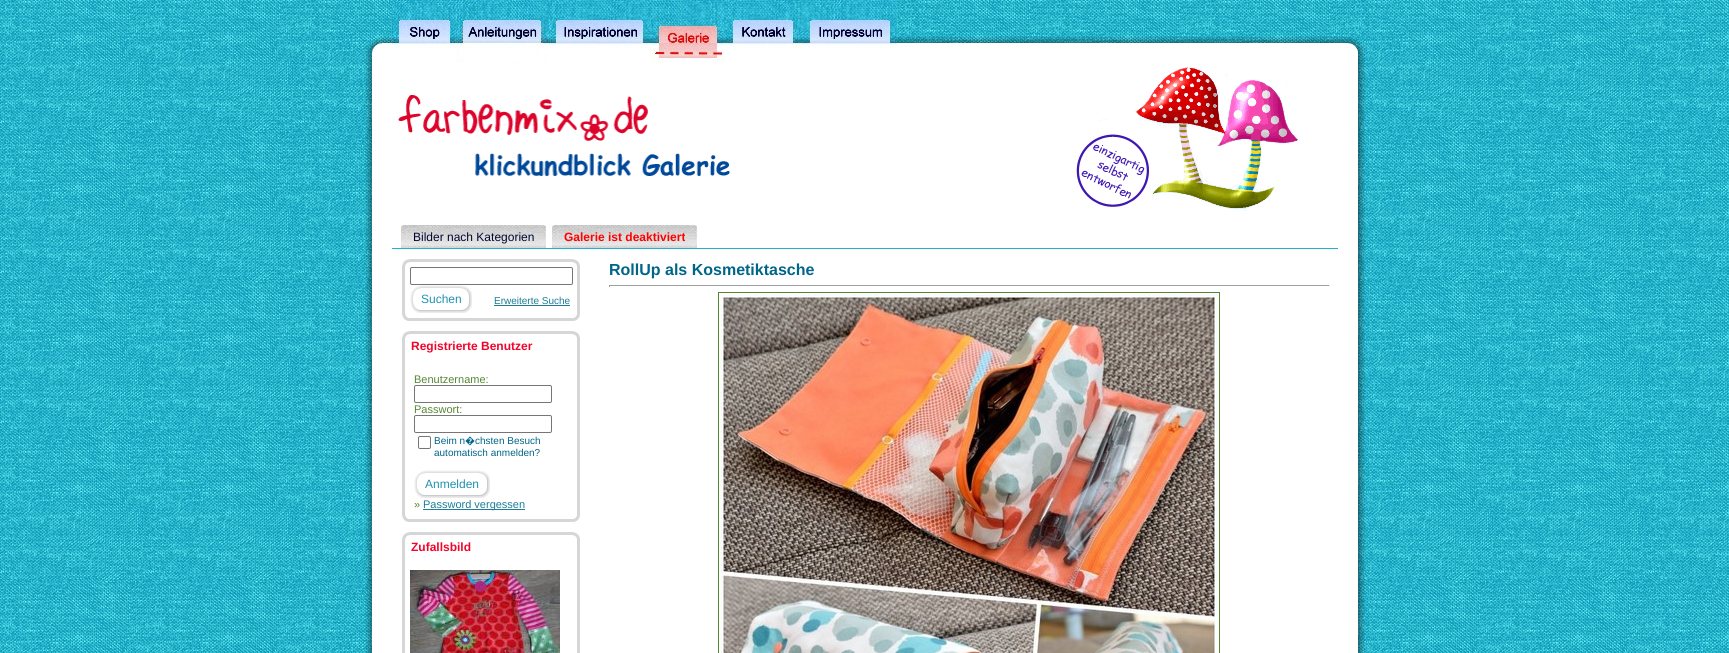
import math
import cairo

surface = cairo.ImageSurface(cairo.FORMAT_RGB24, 1729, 653)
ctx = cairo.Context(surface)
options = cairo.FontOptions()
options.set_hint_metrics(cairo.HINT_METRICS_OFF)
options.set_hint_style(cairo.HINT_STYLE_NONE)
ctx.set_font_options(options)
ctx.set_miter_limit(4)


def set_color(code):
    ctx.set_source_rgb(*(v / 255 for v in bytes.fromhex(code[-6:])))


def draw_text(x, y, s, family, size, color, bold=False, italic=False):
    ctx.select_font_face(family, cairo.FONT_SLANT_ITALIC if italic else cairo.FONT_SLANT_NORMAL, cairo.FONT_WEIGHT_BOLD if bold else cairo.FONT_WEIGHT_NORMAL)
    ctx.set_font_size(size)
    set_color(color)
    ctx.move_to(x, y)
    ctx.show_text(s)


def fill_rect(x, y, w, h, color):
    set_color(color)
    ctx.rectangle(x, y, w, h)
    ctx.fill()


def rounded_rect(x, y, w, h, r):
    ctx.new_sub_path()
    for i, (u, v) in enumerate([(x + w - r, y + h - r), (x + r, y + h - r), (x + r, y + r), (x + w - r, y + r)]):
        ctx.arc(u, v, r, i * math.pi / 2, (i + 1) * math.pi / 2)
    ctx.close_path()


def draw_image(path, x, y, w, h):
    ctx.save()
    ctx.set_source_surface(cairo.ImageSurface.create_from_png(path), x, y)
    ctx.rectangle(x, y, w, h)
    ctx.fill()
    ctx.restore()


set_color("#ffffff")
ctx.paint()
draw_image("assets/img1.png", 0, 0, 1729, 653)
draw_image("assets/img8.png", 365, 36, 38, 38)
draw_image("assets/img9.png", 403, 36, 924, 38)
draw_image("assets/img2.png", 392, 0, 64, 48)
draw_image("assets/img3.png", 456, 0, 92, 63)
draw_image("assets/img4.png", 548, 0, 102, 48)
draw_image("assets/img5.png", 650, 0, 76, 63)
draw_image("assets/img6.png", 726, 0, 76, 48)
draw_image("assets/img7.png", 802, 0, 95, 48)
draw_image("assets/img10.png", 1327, 36, 38, 38)
draw_image("assets/img11.png", 365, 74, 38, 579)
fill_rect(403, 74, 924, 579, "#ffffff")
draw_image("assets/img12.png", 1327, 74, 38, 579)
draw_image("assets/img13.png", 398, 95, 332, 81)
draw_image("assets/img14.png", 1062, 67, 237, 144)
draw_image("assets/img15.png", 401, 225, 143, 23)
draw_image("assets/img16.png", 544, 225, 2, 23)
draw_text(413, 241, "Bilder nach Kategorien", "Liberation Sans", 12, "#000730")
draw_image("assets/img17.png", 552, 225, 143, 23)
draw_image("assets/img16.png", 695, 225, 2, 23)
draw_text(564, 241, "Galerie ist deaktiviert", "Liberation Sans", 12, "#ff0000", bold=True)
fill_rect(392, 248, 946, 1, "#25afd4")
draw_text(609, 275, "RollUp als Kosmetiktasche", "Liberation Sans", 16, "#006688", bold=True)
fill_rect(609, 285, 721, 1, "#9f9f9f")
fill_rect(1329, 285, 1, 2, "#eeeeee")
fill_rect(609, 285, 1, 2, "#9f9f9f")
ctx.rectangle(718.5, 292.5, 501, 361)
set_color("#558833")
ctx.set_line_width(1)
ctx.stroke()
draw_image("assets/img18.png", 719, 293, 498, 360)
draw_image("assets/img19.png", 402, 259, 8, 8)
fill_rect(410, 259, 162, 3, "#d6d6d6")
draw_image("assets/img20.png", 572, 259, 8, 8)
fill_rect(402, 267, 3, 46, "#d6d6d6")
rounded_rect(410.5, 267.5, 162, 17, 1.5)
set_color("#767676")
ctx.stroke()
draw_image("assets/img21.png", 410, 285, 48, 28)
draw_image("assets/img22.png", 458, 285, 14, 28)
draw_text(421, 303, "Suchen", "Liberation Sans", 12, "#1f92b2")
draw_text(494, 304, "Erweiterte Suche", "Liberation Sans", 10, "#1b7d98")
fill_rect(494, 305, 76, 1, "#1b7d98")
fill_rect(577, 267, 3, 46, "#d6d6d6")
draw_image("assets/img23.png", 402, 313, 8, 8)
fill_rect(410, 318, 162, 3, "#d6d6d6")
draw_image("assets/img24.png", 572, 313, 8, 8)
draw_image("assets/img19.png", 402, 331, 8, 8)
fill_rect(410, 331, 162, 3, "#d6d6d6")
draw_image("assets/img20.png", 572, 331, 8, 8)
fill_rect(402, 339, 3, 175, "#d6d6d6")
draw_text(411, 350, "Registrierte Benutzer", "Liberation Sans", 12, "#f1042b", bold=True)
draw_text(414, 383, "Benutzername:", "Liberation Sans", 11, "#558833")
rounded_rect(414.5, 385.5, 137, 17, 1.5)
set_color("#767676")
ctx.stroke()
draw_text(414, 413, "Passwort:", "Liberation Sans", 11, "#558833")
rounded_rect(414.5, 415.5, 137, 17, 1.5)
set_color("#767676")
ctx.stroke()
rounded_rect(418.5, 436.5, 12, 12, 1.5)
ctx.stroke()
draw_text(434, 444, "Beim n", "Liberation Sans", 10, "#006688")
draw_text(465, 444, "�", "Noto Sans", 10, "#006688")
draw_text(475, 444, "chsten Besuch", "Liberation Sans", 10, "#006688")
draw_text(434, 456, "automatisch anmelden?", "Liberation Sans", 10, "#006688")
draw_image("assets/img25.png", 414, 470, 62, 28)
draw_image("assets/img22.png", 476, 470, 14, 28)
draw_text(425, 488, "Anmelden", "Liberation Sans", 12, "#1f92b2")
draw_text(414, 508, "»", "Liberation Sans", 11, "#558833")
fill_rect(423, 509, 102, 1, "#1b7d98")
draw_text(423, 508, "Password vergessen", "Liberation Sans", 11, "#1b7d98")
fill_rect(577, 339, 3, 175, "#d6d6d6")
draw_image("assets/img23.png", 402, 514, 8, 8)
fill_rect(410, 519, 162, 3, "#d6d6d6")
draw_image("assets/img24.png", 572, 514, 8, 8)
draw_image("assets/img19.png", 402, 532, 8, 8)
fill_rect(410, 532, 162, 3, "#d6d6d6")
draw_image("assets/img20.png", 572, 532, 8, 8)
fill_rect(402, 540, 3, 113, "#d6d6d6")
draw_text(411, 551, "Zufallsbild", "Liberation Sans", 12, "#f1042b", bold=True)
draw_image("assets/img26.png", 410, 570, 150, 83)
fill_rect(577, 540, 3, 113, "#d6d6d6")
surface.write_to_png("output.png")
